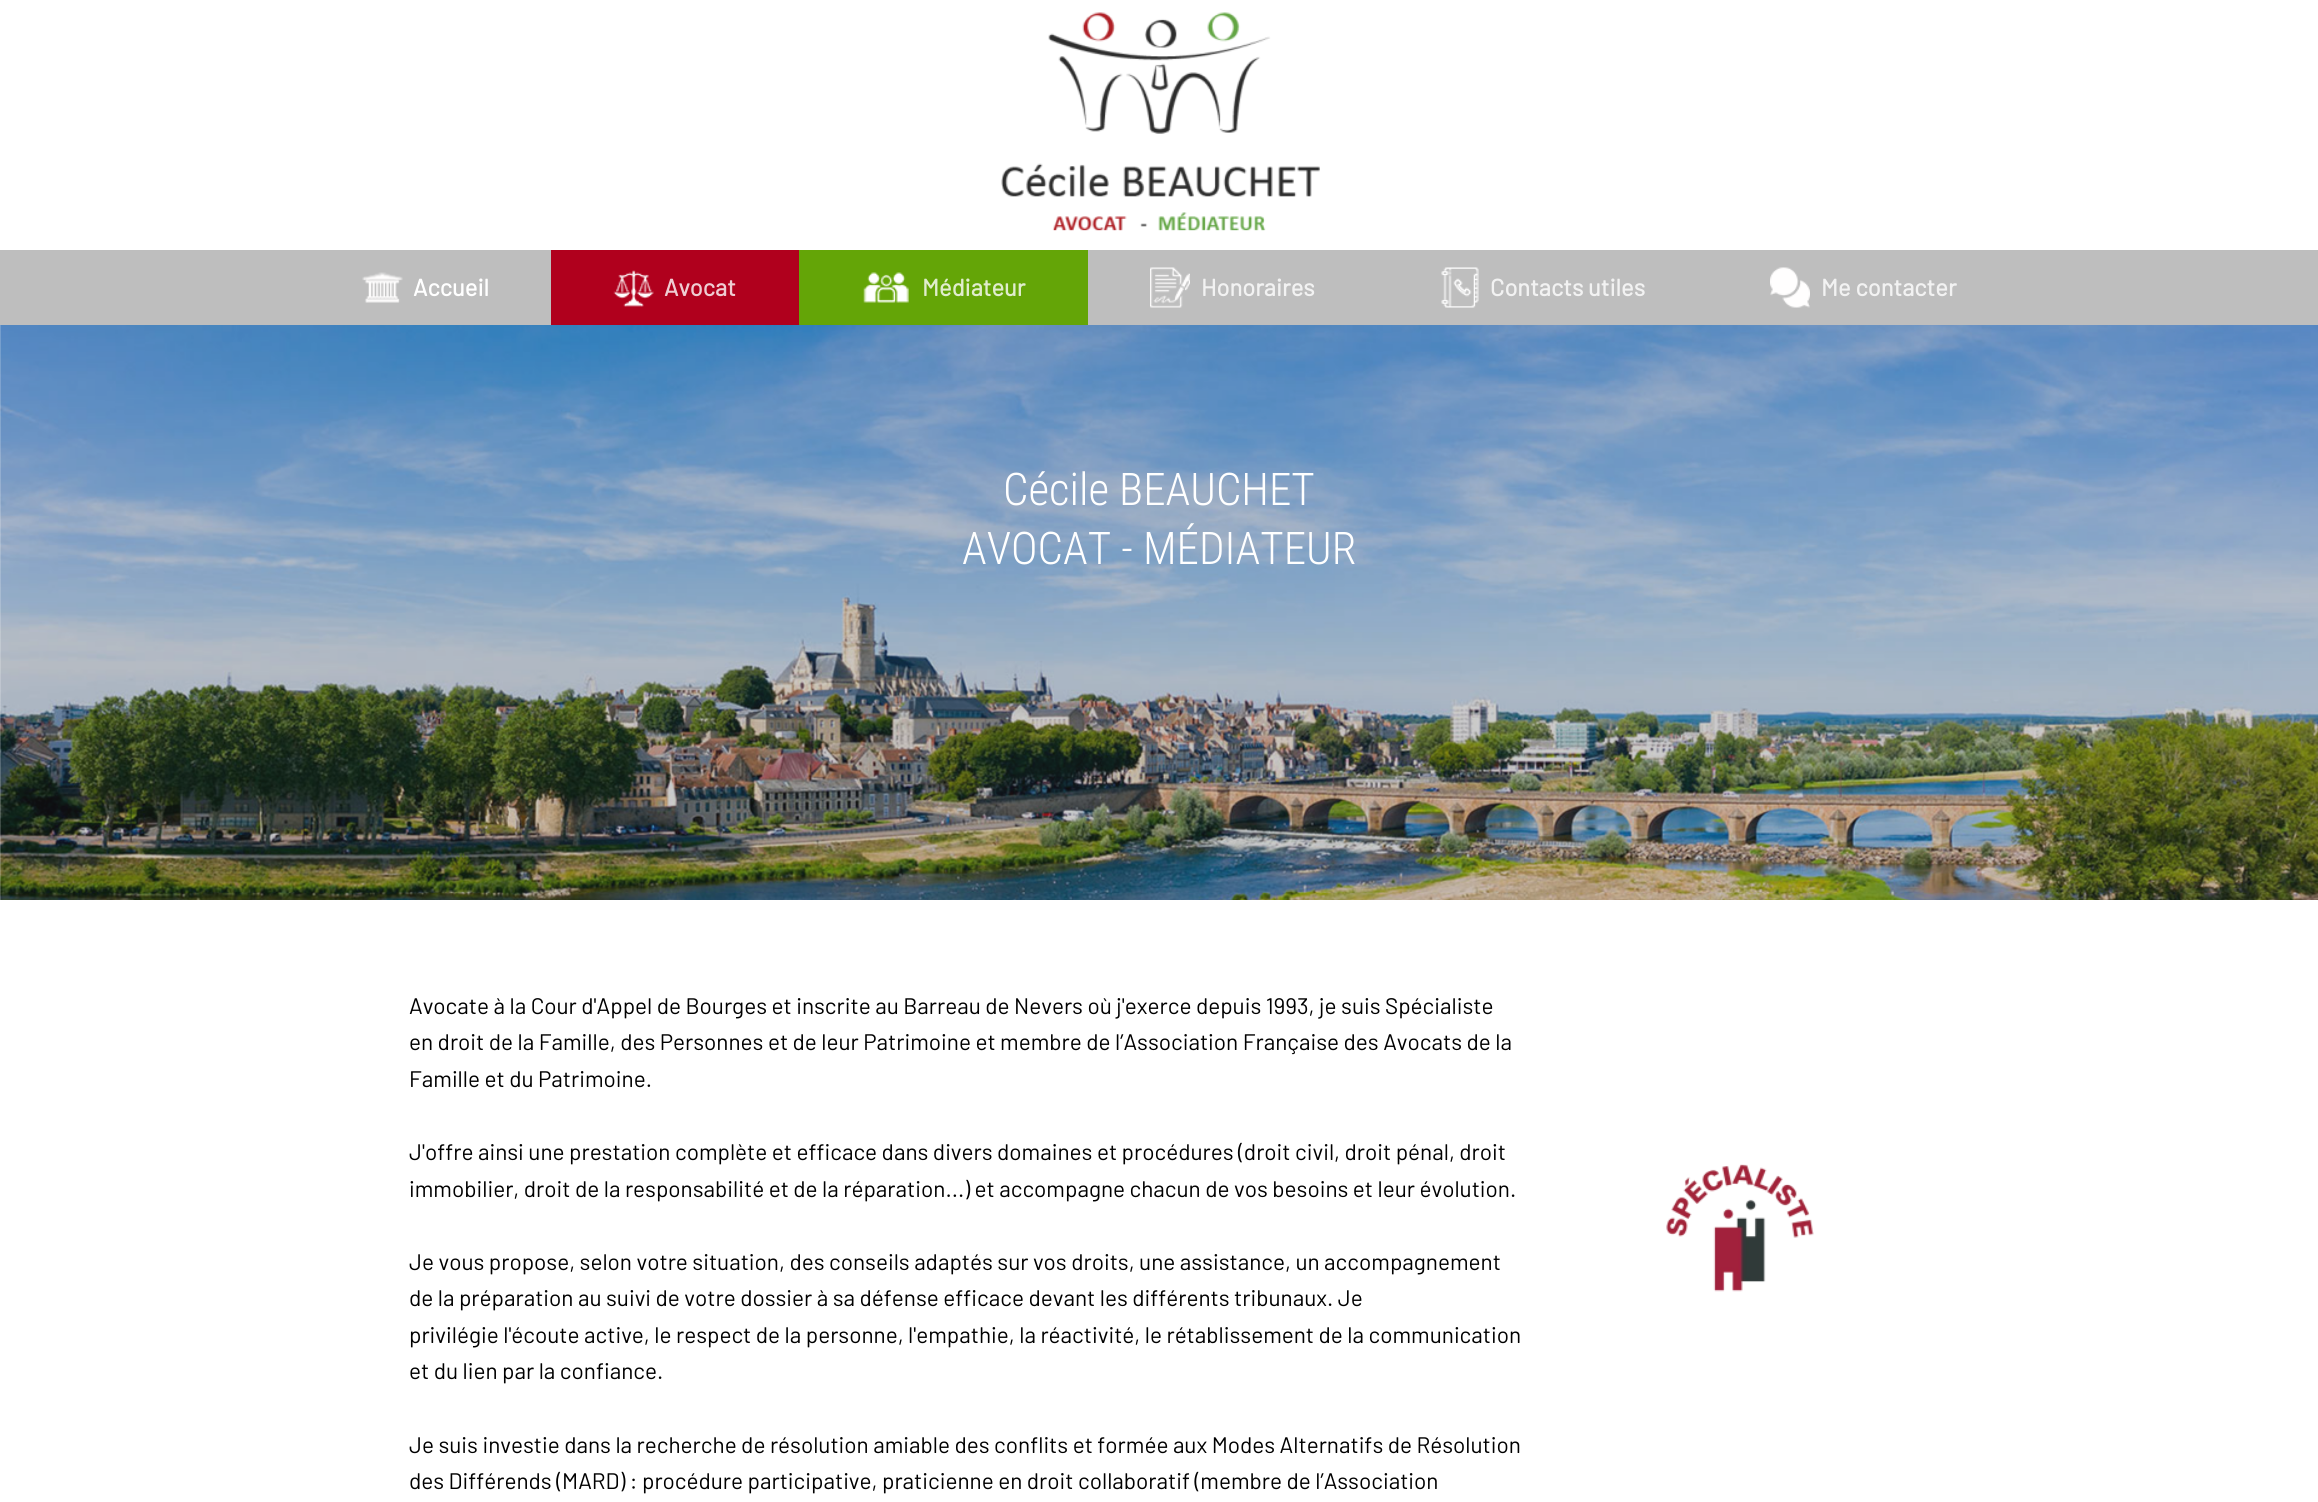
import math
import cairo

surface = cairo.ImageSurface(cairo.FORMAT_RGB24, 2318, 1502)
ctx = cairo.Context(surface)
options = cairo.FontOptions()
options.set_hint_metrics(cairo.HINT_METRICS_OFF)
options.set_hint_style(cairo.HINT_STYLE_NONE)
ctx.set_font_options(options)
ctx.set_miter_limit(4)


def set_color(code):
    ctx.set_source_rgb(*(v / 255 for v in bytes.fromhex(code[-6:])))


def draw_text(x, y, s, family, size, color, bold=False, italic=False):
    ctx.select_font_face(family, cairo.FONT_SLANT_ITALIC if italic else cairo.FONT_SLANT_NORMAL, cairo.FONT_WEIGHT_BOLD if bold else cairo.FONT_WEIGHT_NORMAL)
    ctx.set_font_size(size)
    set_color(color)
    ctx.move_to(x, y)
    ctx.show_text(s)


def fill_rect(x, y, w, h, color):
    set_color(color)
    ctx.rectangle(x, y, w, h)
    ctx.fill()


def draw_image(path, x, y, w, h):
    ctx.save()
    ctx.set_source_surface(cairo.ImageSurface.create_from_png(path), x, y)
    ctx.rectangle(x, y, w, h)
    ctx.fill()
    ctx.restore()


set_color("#ffffff")
ctx.paint()
draw_image("assets/img1.png", 1001, 12, 319, 219)
fill_rect(0, 250, 2318, 75, "#bebebe")
draw_image("assets/img2.png", 362, 272, 41, 31)
draw_text(413, 296, "Accueil", "Barlow", 23.75, "#ffffff", bold=True)
fill_rect(551, 250, 248, 75, "#b0001d")
draw_image("assets/img3.png", 613, 270, 41, 37)
draw_text(664, 296, "Avocat", "Barlow", 23.75, "#efccd2", bold=True)
fill_rect(799, 250, 289, 75, "#64a507")
draw_image("assets/img4.png", 863, 272, 46, 31)
draw_text(922, 296, "Médiateur", "Barlow", 23.75, "#e0edcd", bold=True)
draw_image("assets/img5.png", 1150, 267, 40, 41)
draw_text(1201, 296, "Honoraires", "Barlow", 23.75, "#f2f2f2", bold=True)
draw_image("assets/img6.png", 1441, 267, 38, 41)
draw_text(1490, 296, "Contacts utiles", "Barlow", 23.75, "#f2f2f2", bold=True)
draw_image("assets/img7.png", 1770, 267, 40, 41)
draw_text(1821, 296, "Me contacter", "Barlow", 23.75, "#f2f2f2", bold=True)
draw_image("assets/img8.png", 0, 325, 2318, 575)
draw_text(1003, 505, "Cécile BEAUCHET", "Roboto Condensed Light", 45, "#ffffff")
draw_text(962, 564, "AVOCAT - MÉDIATEUR", "Roboto Condensed Light", 45, "#ffffff")
draw_text(409, 1014, "Avocate à la Cour d'Appel de Bourges et inscrite au Barreau de Nevers où j'exerce depuis 1993, je suis Spécialiste", "Barlow", 22.5, "#000000")
draw_text(409, 1050, "en droit de la Famille, des Personnes et de leur Patrimoine et membre de l’Association Française des Avocats de la", "Barlow", 22.5, "#000000")
draw_text(409, 1087, "Famille et du Patrimoine.", "Barlow", 22.5, "#000000")
draw_text(409, 1160, "J'offre ainsi une prestation complète et efficace dans divers domaines et procédures (droit civil, droit pénal, droit", "Barlow", 22.5, "#000000")
draw_text(409, 1197, "immobilier, droit de la responsabilité et de la réparation...) et accompagne chacun de vos besoins et leur évolution.", "Barlow", 22.5, "#000000")
draw_text(409, 1270, "Je vous propose, selon votre situation, des conseils adaptés sur vos droits, une assistance, un accompagnement", "Barlow", 22.5, "#000000")
draw_text(409, 1306, "de la préparation au suivi de votre dossier à sa défense efficace devant les différents tribunaux. Je", "Barlow", 22.5, "#000000")
draw_text(409, 1343, "privilégie l'écoute active, le respect de la personne, l'empathie, la réactivité, le rétablissement de la communication", "Barlow", 22.5, "#000000")
draw_text(409, 1379, "et du lien par la confiance.", "Barlow", 22.5, "#000000")
draw_text(409, 1453, "Je suis investie dans la recherche de résolution amiable des conflits et formée aux Modes Alternatifs de Résolution", "Barlow", 22.5, "#000000")
draw_text(409, 1489, "des Différends (MARD) : procédure participative, praticienne en droit collaboratif (membre de l’Association", "Barlow", 22.5, "#000000")
draw_image("assets/img9.png", 1666, 1164, 148, 128)
surface.write_to_png("output.png")
